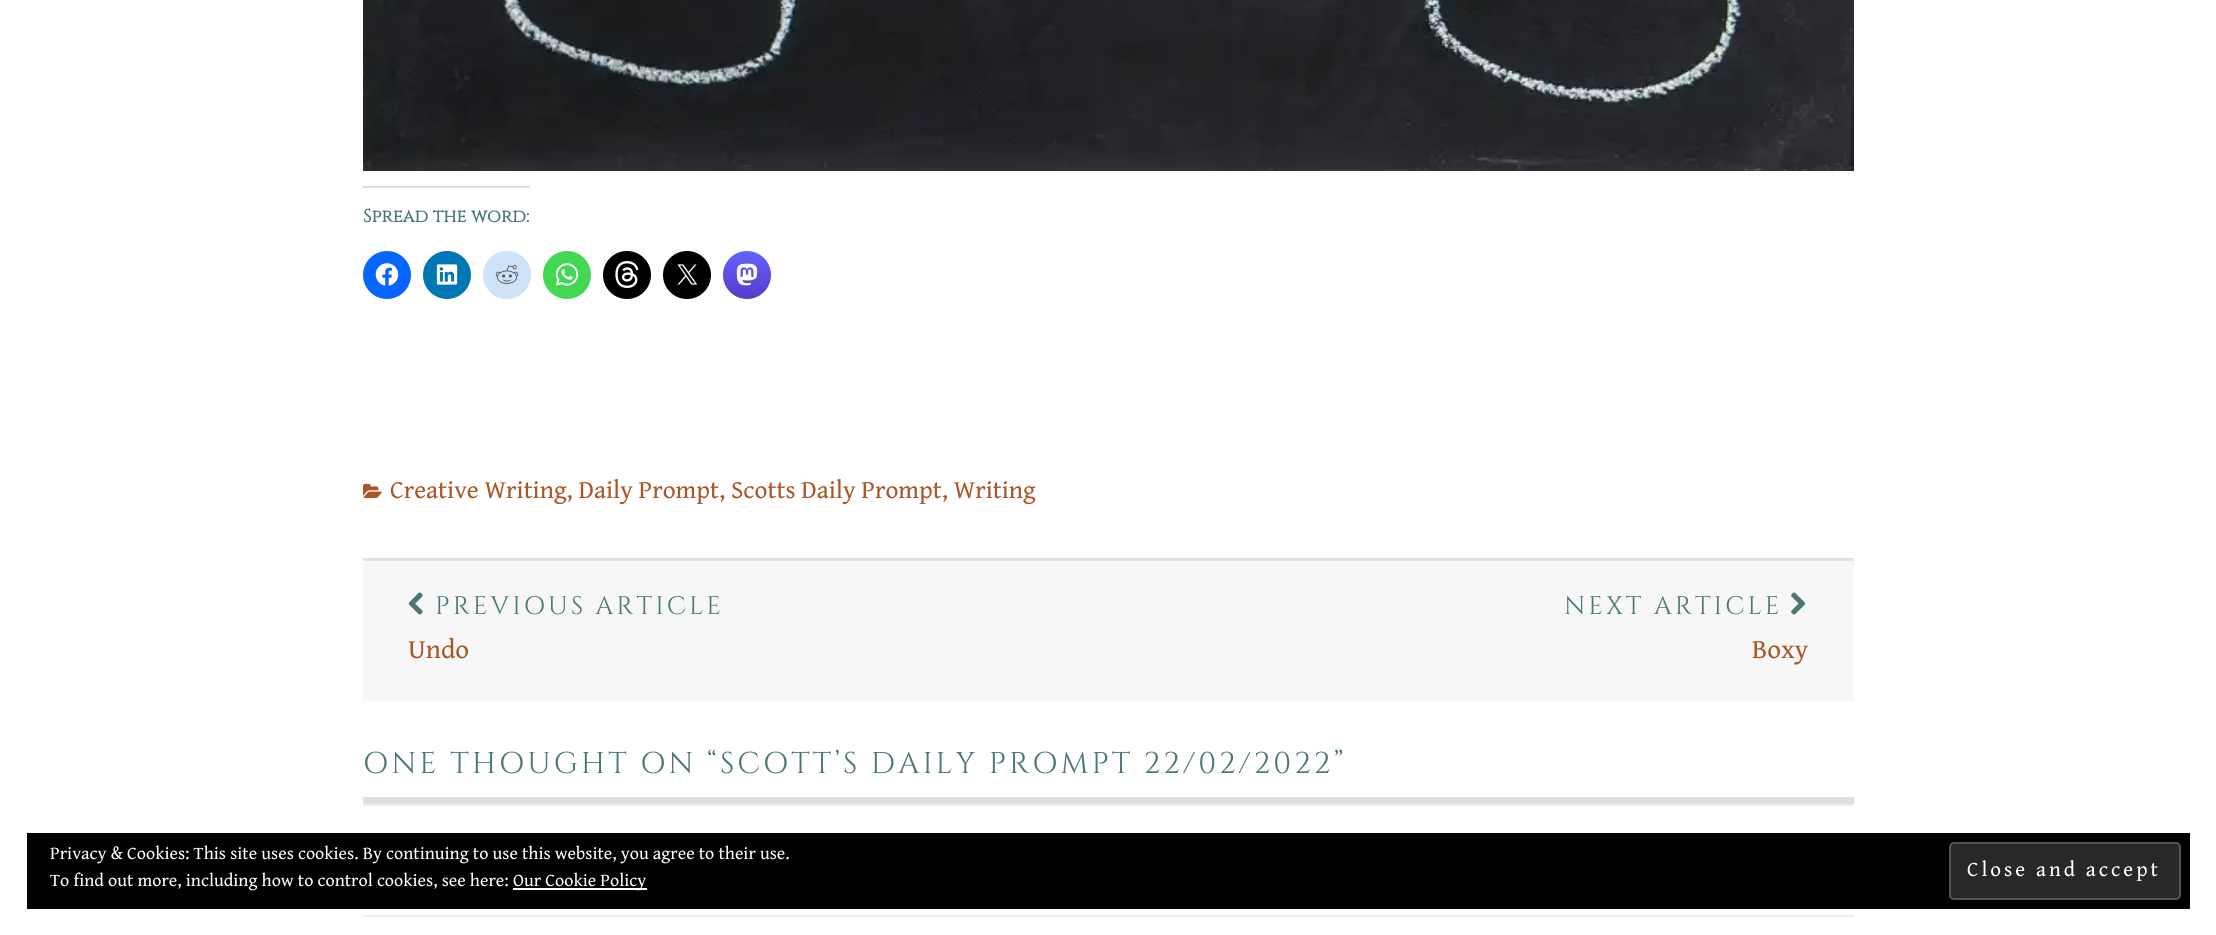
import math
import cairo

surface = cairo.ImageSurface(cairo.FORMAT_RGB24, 2216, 935)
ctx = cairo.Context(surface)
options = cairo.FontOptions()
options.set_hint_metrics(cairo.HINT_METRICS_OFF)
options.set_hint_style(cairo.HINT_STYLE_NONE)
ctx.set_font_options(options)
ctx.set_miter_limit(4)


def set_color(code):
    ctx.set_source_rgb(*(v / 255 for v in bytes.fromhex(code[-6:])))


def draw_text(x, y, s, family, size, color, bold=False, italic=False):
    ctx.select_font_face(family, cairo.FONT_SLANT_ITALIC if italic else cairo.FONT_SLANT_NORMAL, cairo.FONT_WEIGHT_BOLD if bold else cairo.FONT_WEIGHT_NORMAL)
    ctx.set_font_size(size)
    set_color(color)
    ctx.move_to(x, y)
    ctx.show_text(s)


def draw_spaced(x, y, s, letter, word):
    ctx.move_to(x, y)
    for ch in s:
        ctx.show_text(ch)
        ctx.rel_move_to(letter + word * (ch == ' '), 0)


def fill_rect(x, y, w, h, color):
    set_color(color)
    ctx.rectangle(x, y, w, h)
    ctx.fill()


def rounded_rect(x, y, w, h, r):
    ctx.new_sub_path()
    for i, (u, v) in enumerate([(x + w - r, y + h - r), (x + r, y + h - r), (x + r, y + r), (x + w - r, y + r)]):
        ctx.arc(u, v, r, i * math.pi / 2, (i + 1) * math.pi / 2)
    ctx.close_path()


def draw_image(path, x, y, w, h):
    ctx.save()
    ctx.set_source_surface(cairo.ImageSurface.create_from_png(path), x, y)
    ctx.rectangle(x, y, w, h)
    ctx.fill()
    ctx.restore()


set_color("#ffffff")
ctx.paint()
fill_rect(363, 558, 1491, 3, "#e2e2e2")
draw_image("assets/img1.png", 363, 0, 1491, 171)
fill_rect(363, 186, 167, 2, "#dcdcde")
draw_text(363, 222, "Spread the word:", "Cinzel", 18, "#4a7776", bold=True)
set_color("#0866ff")
ctx.new_path()
ctx.arc(387, 275, 24, 0, 2 * math.pi)
ctx.fill()
draw_image("assets/img2.png", 375, 263, 24, 23)
set_color("#0077b5")
ctx.arc(447, 275, 24, 0, 2 * math.pi)
ctx.fill()
draw_image("assets/img3.png", 436, 264, 22, 21)
set_color("#cee3f8")
ctx.arc(507, 275, 24, 0, 2 * math.pi)
ctx.fill()
draw_image("assets/img4.png", 495, 265, 24, 19)
set_color("#43d854")
ctx.arc(567, 275, 24, 0, 2 * math.pi)
ctx.fill()
draw_image("assets/img5.png", 555, 263, 24, 23)
set_color("#000000")
ctx.arc(627, 275, 24, 0, 2 * math.pi)
ctx.fill()
draw_image("assets/img6.png", 615, 261, 24, 27)
ctx.arc(687, 275, 24, 0, 2 * math.pi)
ctx.fill()
draw_image("assets/img7.png", 677, 264, 21, 21)
gradient = cairo.LinearGradient(747, 299, 747, 251)
gradient.add_color_stop_rgba(0, 0.337, 0.227, 0.8, 1)
gradient.add_color_stop_rgba(1, 0.388, 0.392, 1, 1)
ctx.set_source(gradient)
ctx.arc(747, 275, 24, 0, 2 * math.pi)
ctx.fill()
draw_image("assets/img8.png", 736, 263, 22, 23)
draw_image("assets/img9.png", 363, 483, 19, 15)
draw_text(390, 498, "Creative Writing, Daily Prompt, Scotts Daily Prompt, Writing", "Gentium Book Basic", 25.35, "#aa5626")
fill_rect(363, 561, 1491, 140, "#f7f7f7")
draw_image("assets/img10.png", 408, 592, 15, 23)
ctx.select_font_face("Cinzel")
set_color("#4a7776")
draw_spaced(435, 614, "PREVIOUS ARTICLE", 3, 0)
draw_text(408, 658, "Undo", "Gentium Book Basic", 27, "#aa5626")
ctx.select_font_face("Cinzel")
ctx.set_font_size(25.35)
set_color("#4a7776")
draw_spaced(1564, 614, "NEXT ARTICLE", 3, 0)
draw_image("assets/img11.png", 1791, 592, 14, 23)
draw_text(1752, 658, "Boxy", "Gentium Book Basic", 27, "#aa5626")
fill_rect(363, 797, 1491, 7, "#dfdfdf")
ctx.select_font_face("Cinzel")
ctx.set_font_size(30)
set_color("#4a7776")
draw_spaced(363, 773, "ONE THOUGHT ON “SCOTT’S DAILY PROMPT 22/02/2022”", 3, 0)
fill_rect(363, 915, 1491, 2, "#eeeeee")
fill_rect(363, 804, 1491, 2, "#eeeeee")
fill_rect(27, 833, 2163, 76, "#000000")
draw_text(50, 859, "Privacy & Cookies: This site uses cookies. By continuing to use this website, you agree to their use.", "Gentium Book Basic", 18, "#ffffff")
draw_text(50, 886, "To find out more, including how to control cookies, see here:", "Gentium Book Basic", 18, "#ffffff")
fill_rect(513, 888, 134, 2, "#ffffff")
draw_text(513, 886, "Our Cookie Policy", "Gentium Book Basic", 18, "#ffffff")
set_color("#282828")
rounded_rect(1950, 843, 230, 56, 4)
ctx.fill_preserve()
set_color("#535353")
ctx.stroke()
ctx.set_font_size(21)
set_color("#ffffff")
draw_spaced(1967, 876, "Close and accept", 3, 0)
surface.write_to_png("output.png")
